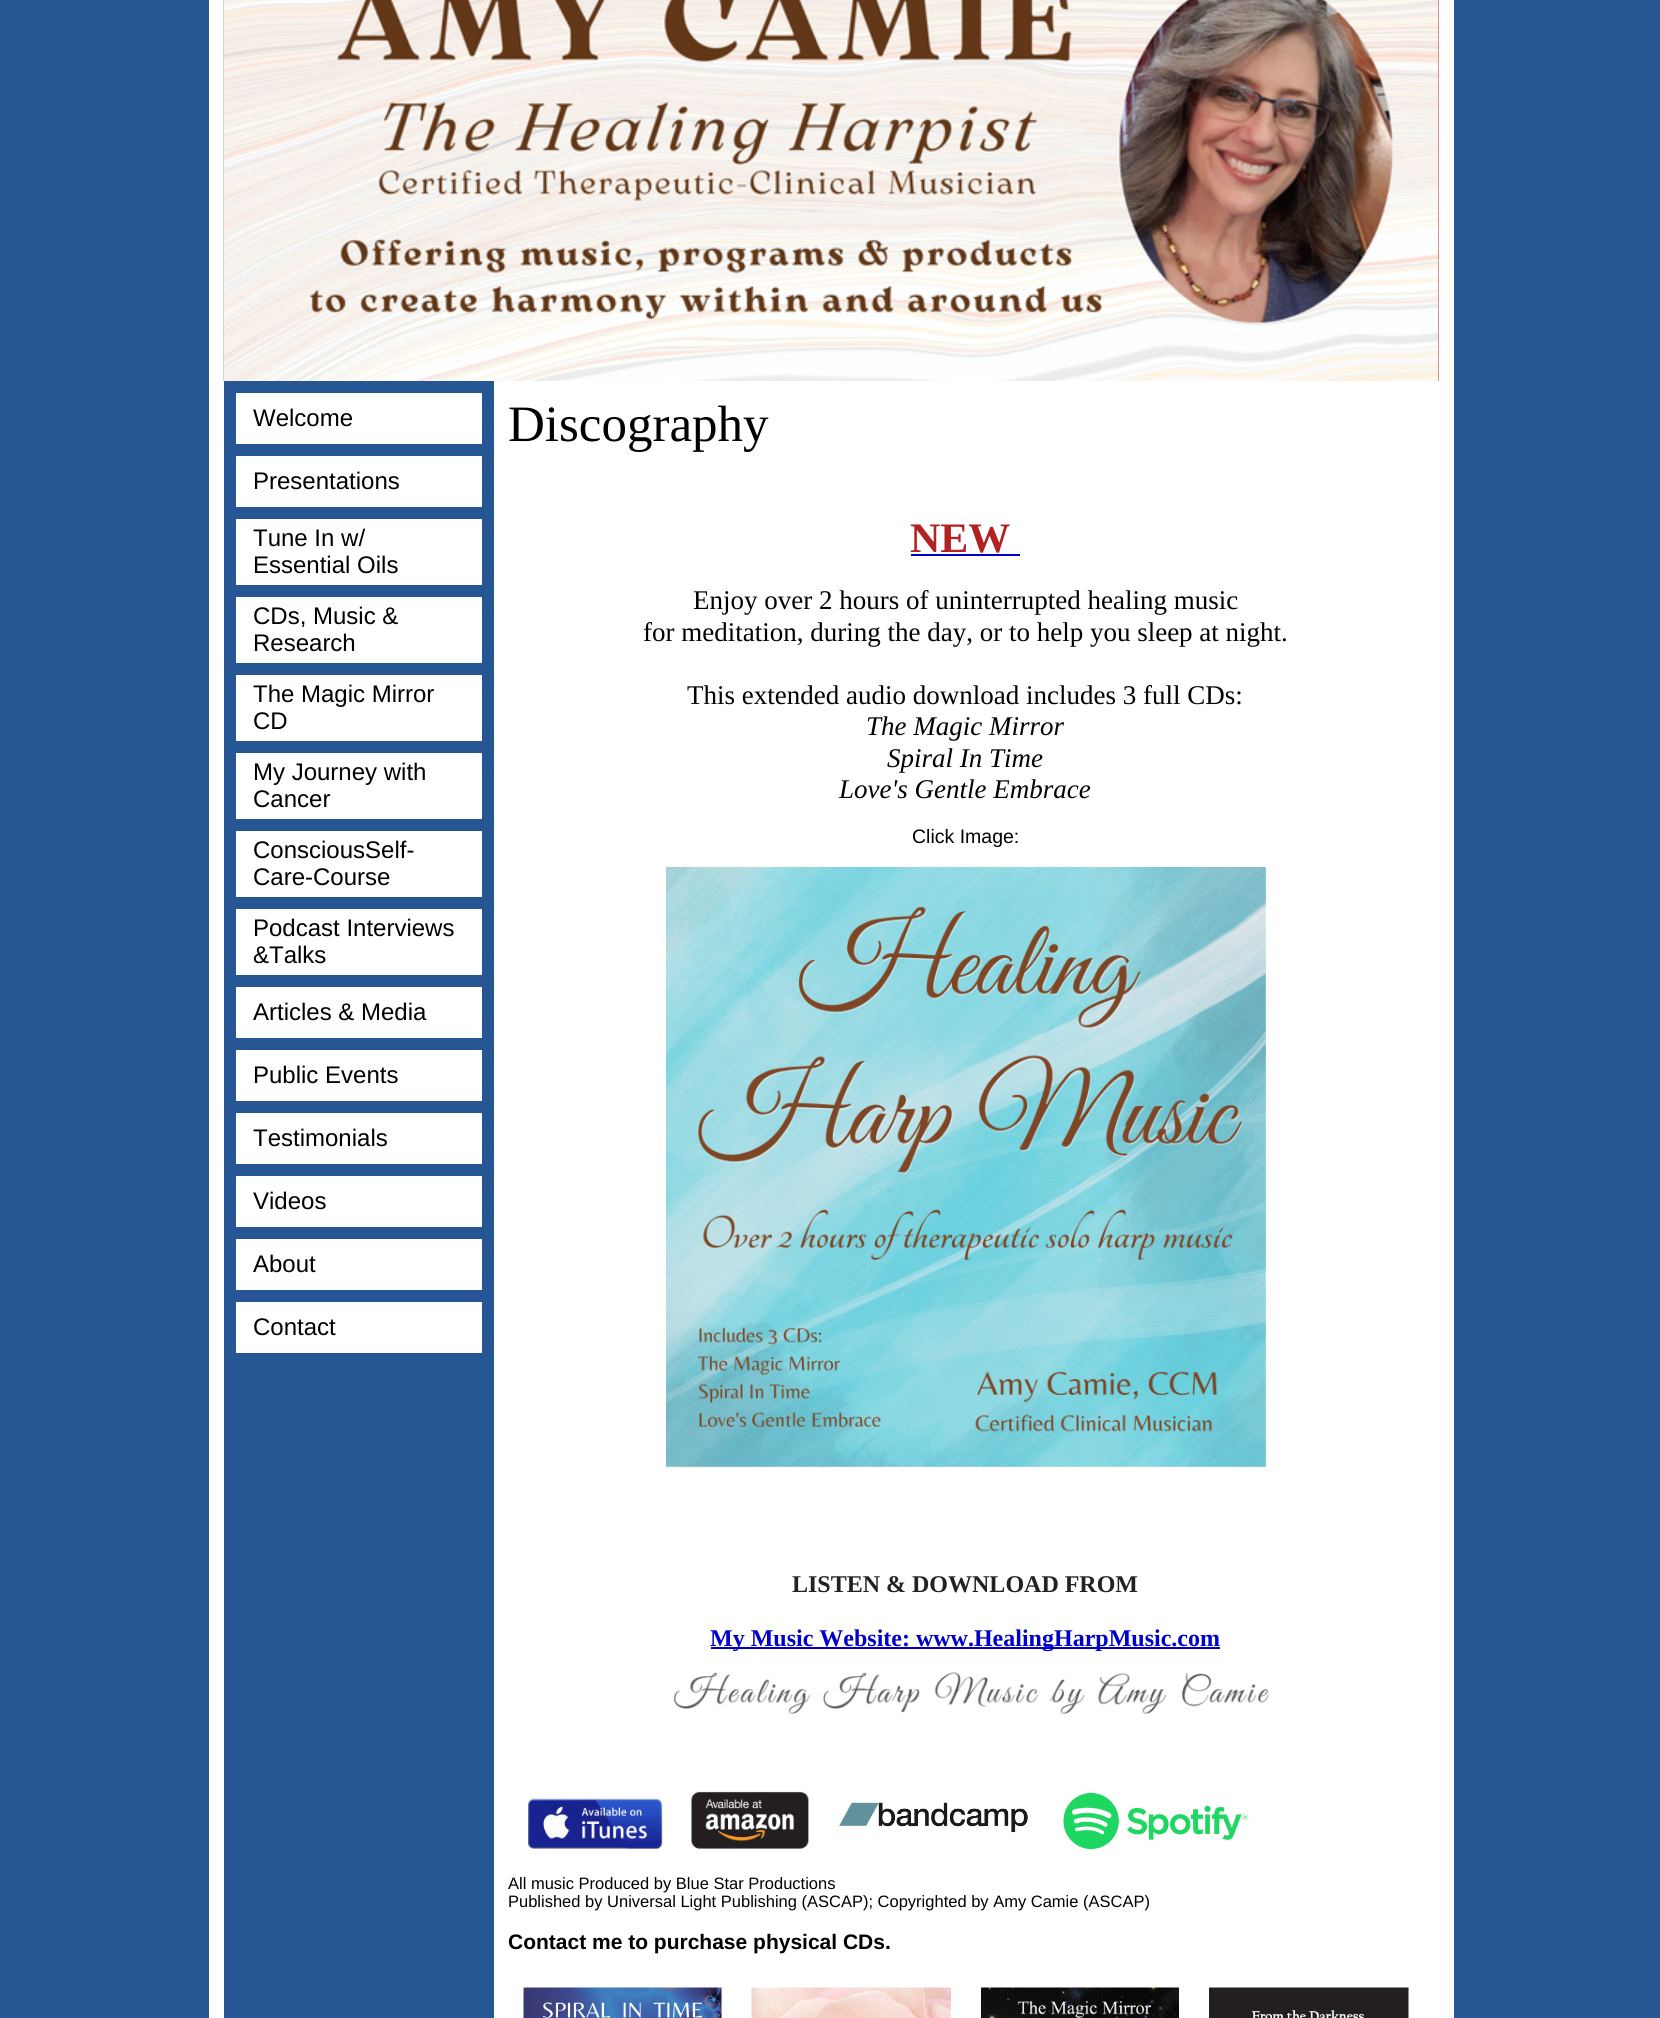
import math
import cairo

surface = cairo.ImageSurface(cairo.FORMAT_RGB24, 1660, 2018)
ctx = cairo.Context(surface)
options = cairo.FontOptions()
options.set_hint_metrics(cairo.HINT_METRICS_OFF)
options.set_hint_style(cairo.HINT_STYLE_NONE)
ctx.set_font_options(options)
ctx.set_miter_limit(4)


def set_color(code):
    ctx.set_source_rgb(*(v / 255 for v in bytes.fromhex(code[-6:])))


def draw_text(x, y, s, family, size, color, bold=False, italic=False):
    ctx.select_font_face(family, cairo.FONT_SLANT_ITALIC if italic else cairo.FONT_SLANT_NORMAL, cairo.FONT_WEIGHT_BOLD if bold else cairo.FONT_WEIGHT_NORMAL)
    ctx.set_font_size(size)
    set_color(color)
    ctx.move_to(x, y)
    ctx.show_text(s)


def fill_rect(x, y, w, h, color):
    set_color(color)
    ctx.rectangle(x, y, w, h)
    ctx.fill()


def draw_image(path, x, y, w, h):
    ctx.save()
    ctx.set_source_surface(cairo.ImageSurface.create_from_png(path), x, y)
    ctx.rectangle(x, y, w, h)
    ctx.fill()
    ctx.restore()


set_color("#265794")
ctx.paint()
fill_rect(209, 0, 1245, 2018, "#ffffff")
fill_rect(1438, 0, 1, 381, "#ff8f5f")
draw_image("assets/img1.png", 223, 0, 1216, 381)
draw_image("assets/img2.png", 223, 0, 1216, 381)
fill_rect(224, 381, 270, 1637, "#265794")
fill_rect(236, 393, 246, 51, "#ffffff")
draw_text(253, 426, "Welcome", "Liberation Sans", 24, "#000000")
fill_rect(236, 456, 246, 51, "#ffffff")
draw_text(253, 489, "Presentations", "Liberation Sans", 24, "#000000")
fill_rect(236, 519, 246, 66, "#ffffff")
draw_text(253, 546, "Tune In w/", "Liberation Sans", 24, "#000000")
draw_text(253, 573, "Essential Oils", "Liberation Sans", 24, "#000000")
fill_rect(236, 597, 246, 66, "#ffffff")
draw_text(253, 624, "CDs, Music &", "Liberation Sans", 24, "#000000")
draw_text(253, 651, "Research", "Liberation Sans", 24, "#000000")
fill_rect(236, 675, 246, 66, "#ffffff")
draw_text(253, 702, "The Magic Mirror", "Liberation Sans", 24, "#000000")
draw_text(253, 729, "CD", "Liberation Sans", 24, "#000000")
fill_rect(236, 753, 246, 66, "#ffffff")
draw_text(253, 780, "My Journey with", "Liberation Sans", 24, "#000000")
draw_text(253, 807, "Cancer", "Liberation Sans", 24, "#000000")
fill_rect(236, 831, 246, 66, "#ffffff")
draw_text(253, 858, "ConsciousSelf-", "Liberation Sans", 24, "#000000")
draw_text(253, 885, "Care-Course", "Liberation Sans", 24, "#000000")
fill_rect(236, 909, 246, 66, "#ffffff")
draw_text(253, 936, "Podcast Interviews", "Liberation Sans", 24, "#000000")
draw_text(253, 963, "&Talks", "Liberation Sans", 24, "#000000")
fill_rect(236, 987, 246, 51, "#ffffff")
draw_text(253, 1020, "Articles & Media", "Liberation Sans", 24, "#000000")
fill_rect(236, 1050, 246, 51, "#ffffff")
draw_text(253, 1083, "Public Events", "Liberation Sans", 24, "#000000")
fill_rect(236, 1113, 246, 51, "#ffffff")
draw_text(253, 1146, "Testimonials", "Liberation Sans", 24, "#000000")
fill_rect(236, 1176, 246, 51, "#ffffff")
draw_text(253, 1209, "Videos", "Liberation Sans", 24, "#000000")
fill_rect(236, 1239, 246, 51, "#ffffff")
draw_text(253, 1272, "About", "Liberation Sans", 24, "#000000")
fill_rect(236, 1302, 246, 51, "#ffffff")
draw_text(253, 1335, "Contact", "Liberation Sans", 24, "#000000")
draw_text(508, 441, "Discography", "Liberation Serif", 51, "#000000")
draw_text(910, 552, "NEW", "Liberation Serif", 42, "#b22222", bold=True)
fill_rect(911, 554, 109, 2, "#0000cc")
draw_text(693, 609, "Enjoy over 2 hours of uninterrupted healing music", "Liberation Serif", 27, "#000000")
draw_text(643, 641, "for meditation, during the day, or to help you sleep at night.", "Liberation Serif", 27, "#000000")
draw_text(687, 704, "This extended audio download includes 3 full CDs:", "Liberation Serif", 27, "#000000")
draw_text(866, 735, "The Magic Mirror", "Liberation Serif", 27, "#000000", italic=True)
draw_text(887, 767, "Spiral In Time", "Liberation Serif", 27, "#000000", italic=True)
draw_text(839, 798, "Love's Gentle Embrace", "Liberation Serif", 27, "#000000", italic=True)
draw_text(912, 843, "Click Image:", "Liberation Sans", 19.5, "#000000")
draw_image("assets/img3.png", 666, 867, 600, 600)
draw_text(792, 1592, "LISTEN & DOWNLOAD FROM", "Liberation Serif", 24, "#222222", bold=True)
fill_rect(711, 1647, 509, 2, "#0000cc")
draw_text(710, 1646, "My Music Website: www.HealingHarpMusic.com", "Liberation Serif", 24, "#0000cc", bold=True)
draw_image("assets/img4.png", 673, 1651, 597, 63)
draw_image("assets/img5.png", 528, 1798, 135, 51)
draw_image("assets/img6.png", 691, 1791, 118, 58)
draw_image("assets/img7.png", 839, 1802, 189, 31)
draw_image("assets/img8.png", 1063, 1792, 186, 58)
draw_text(508, 1889, "All music Produced by Blue Star Productions", "Liberation Sans", 16.5, "#000000")
draw_text(508, 1907, "Published by Universal Light Publishing (ASCAP); Copyrighted by Amy Camie (ASCAP)", "Liberation Sans", 16.5, "#000000")
draw_text(508, 1949, "Contact me to purchase physical CDs.", "Liberation Sans", 21, "#000000", bold=True)
draw_image("assets/img9.png", 523, 1987, 199, 31)
draw_image("assets/img10.png", 751, 1987, 200, 31)
draw_image("assets/img11.png", 981, 1987, 198, 31)
draw_image("assets/img12.png", 1209, 1987, 200, 31)
surface.write_to_png("output.png")
